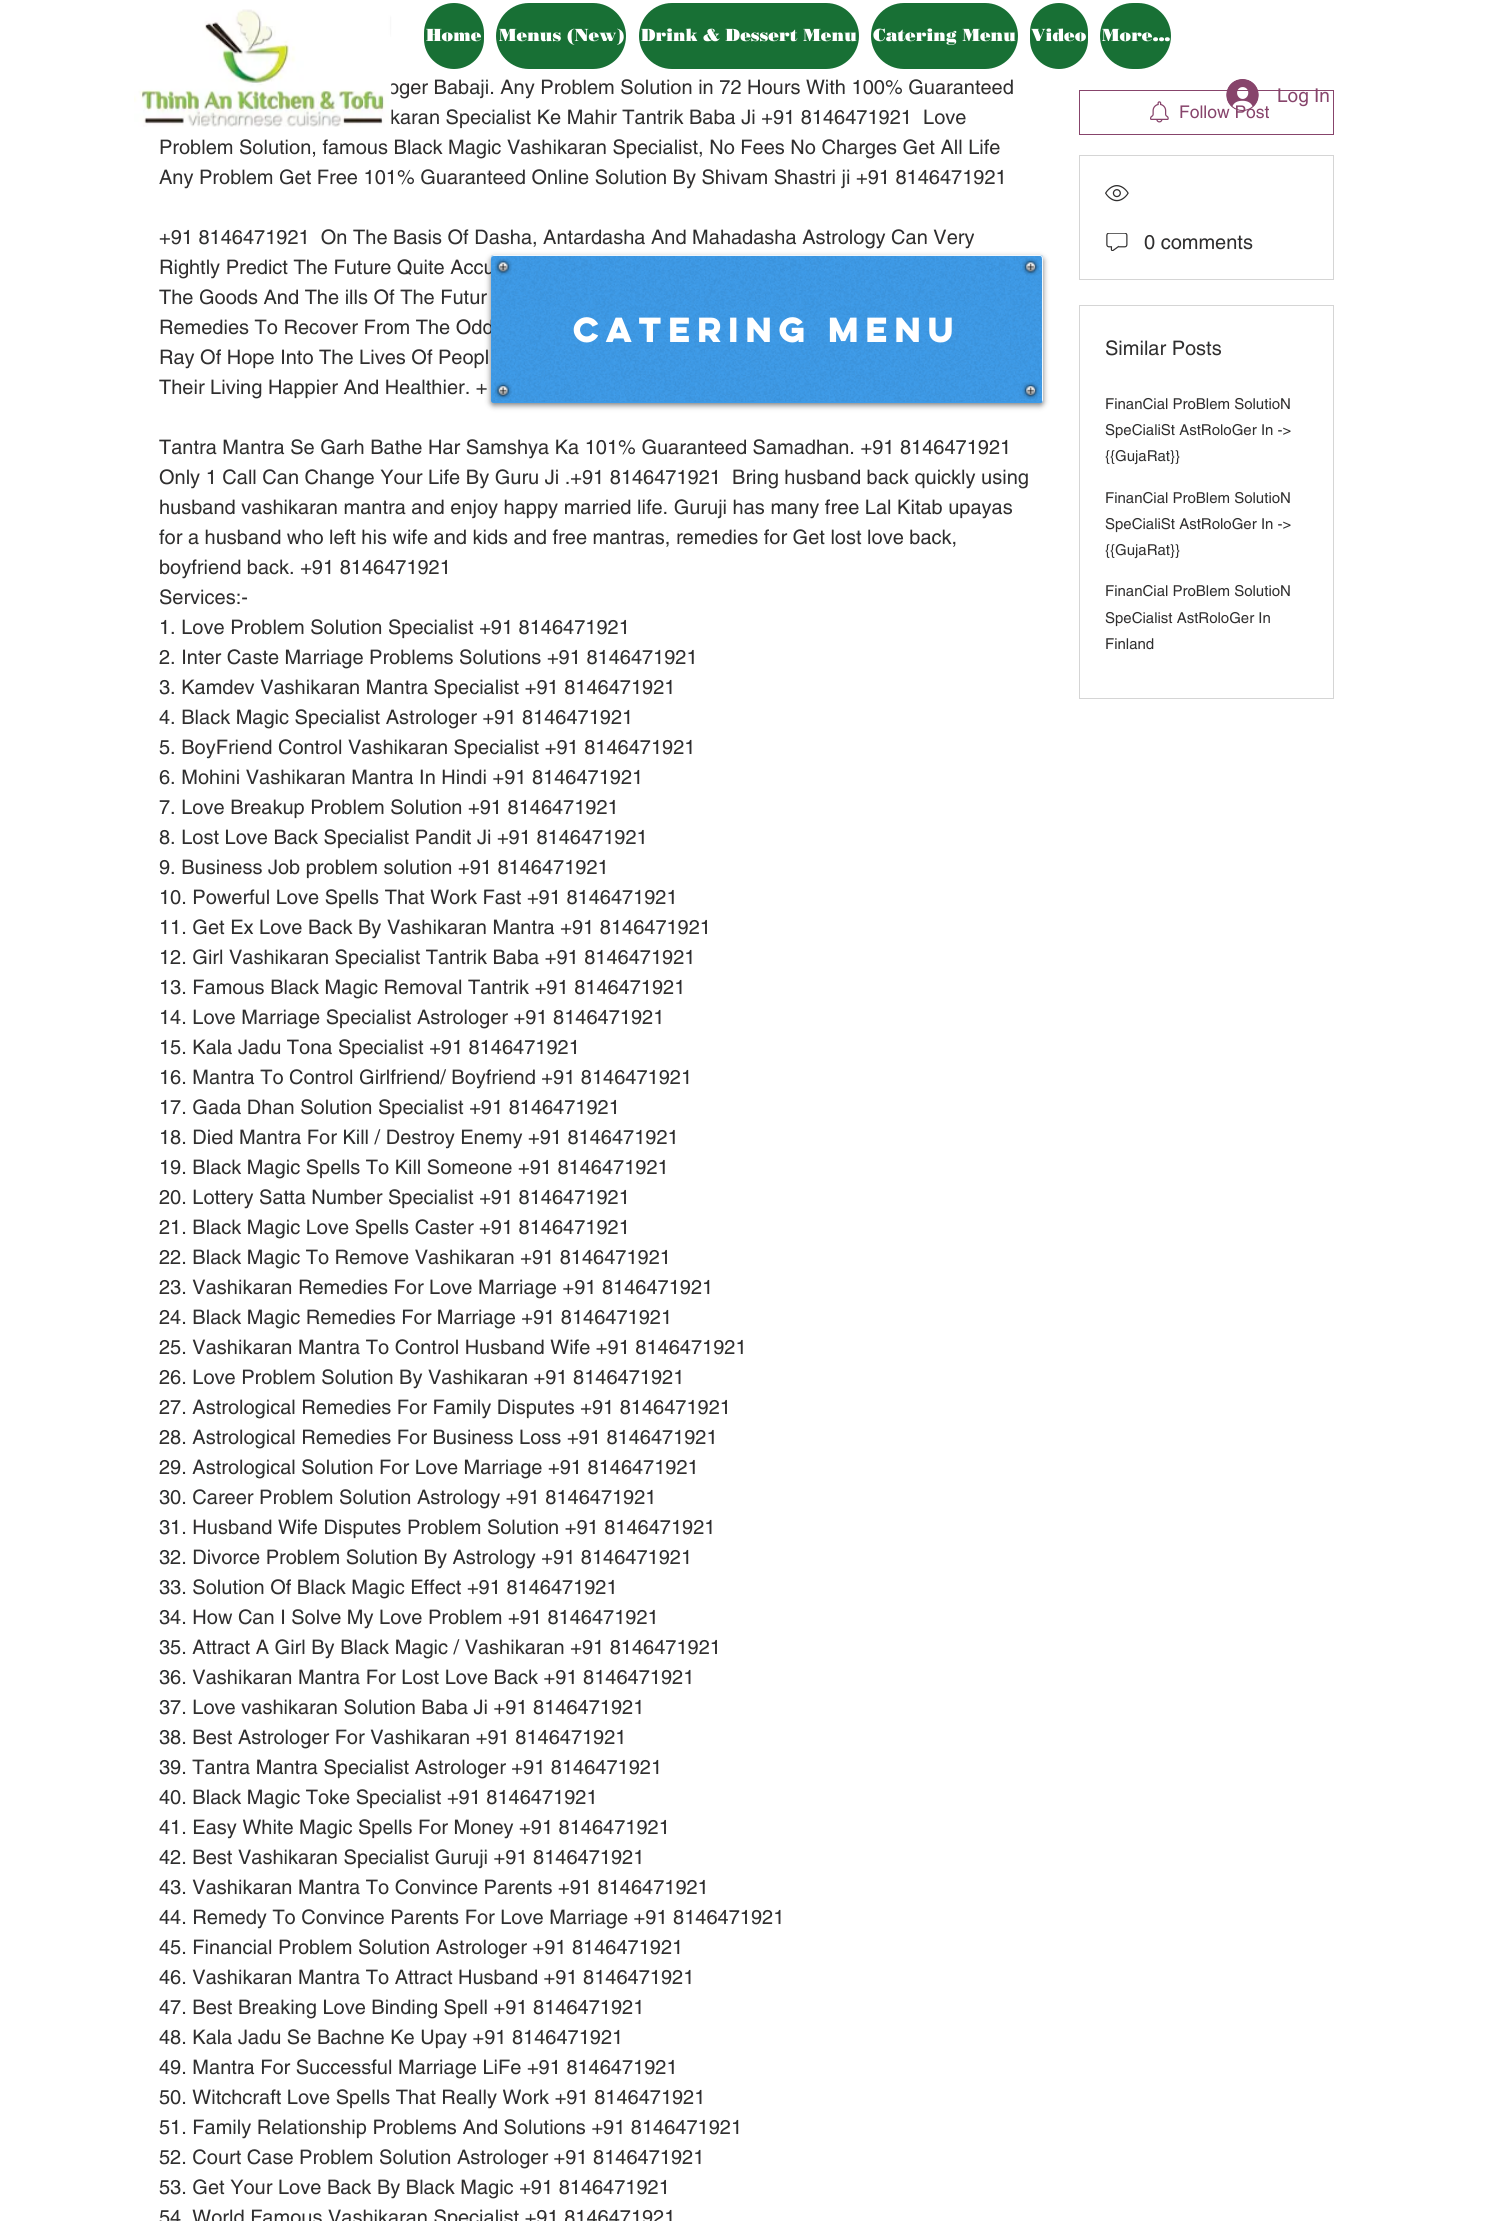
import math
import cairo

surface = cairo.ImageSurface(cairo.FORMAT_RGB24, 1492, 2221)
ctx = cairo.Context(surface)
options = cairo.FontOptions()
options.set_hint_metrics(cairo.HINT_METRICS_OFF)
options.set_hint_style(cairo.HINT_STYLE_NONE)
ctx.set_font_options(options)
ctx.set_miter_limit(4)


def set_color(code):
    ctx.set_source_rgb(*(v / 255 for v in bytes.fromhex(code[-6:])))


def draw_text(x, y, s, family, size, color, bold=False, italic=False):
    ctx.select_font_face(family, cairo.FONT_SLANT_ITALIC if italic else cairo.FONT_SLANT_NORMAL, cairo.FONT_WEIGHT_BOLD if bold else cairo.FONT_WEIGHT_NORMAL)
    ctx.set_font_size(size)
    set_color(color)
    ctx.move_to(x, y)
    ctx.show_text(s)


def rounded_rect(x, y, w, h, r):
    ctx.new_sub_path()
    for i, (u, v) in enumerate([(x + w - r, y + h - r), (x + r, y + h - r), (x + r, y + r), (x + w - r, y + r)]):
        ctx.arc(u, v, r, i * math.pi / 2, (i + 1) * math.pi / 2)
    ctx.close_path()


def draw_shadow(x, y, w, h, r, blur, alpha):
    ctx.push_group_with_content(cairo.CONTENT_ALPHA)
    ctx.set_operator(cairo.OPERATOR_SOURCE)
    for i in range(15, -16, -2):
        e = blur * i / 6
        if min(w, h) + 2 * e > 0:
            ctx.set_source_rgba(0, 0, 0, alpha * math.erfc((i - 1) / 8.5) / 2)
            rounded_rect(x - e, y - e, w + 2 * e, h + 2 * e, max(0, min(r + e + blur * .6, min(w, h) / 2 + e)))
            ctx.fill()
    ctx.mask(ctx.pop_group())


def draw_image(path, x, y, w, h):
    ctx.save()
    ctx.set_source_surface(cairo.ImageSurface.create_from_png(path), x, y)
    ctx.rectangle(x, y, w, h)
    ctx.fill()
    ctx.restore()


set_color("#ffffff")
ctx.paint()
draw_text(388, 94, "oger Babaji. Any Problem Solution in 72 Hours With 100% Guaranteed", "helvetica", 20, "#2f2e2e")
draw_text(390, 124, "karan Specialist Ke Mahir Tantrik Baba Ji +91 8146471921  Love", "helvetica", 20, "#2f2e2e")
draw_image("assets/img1.png", 134, 9, 258, 118)
set_color("#187035")
rounded_rect(424, 3, 60, 66, 30)
ctx.fill()
draw_text(426, 41, "Home", "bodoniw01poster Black", 17.5, "#ffffff")
set_color("#187035")
rounded_rect(496, 3, 130, 66, 33)
ctx.fill()
draw_text(499, 41, "Menus (New)", "bodoniw01poster Black", 17.5, "#ffffff")
set_color("#187035")
rounded_rect(639, 3, 220, 66, 33)
ctx.fill()
draw_text(641, 41, "Drink & Dessert Menu", "bodoniw01poster Black", 17.5, "#ffffff")
set_color("#187035")
rounded_rect(871, 3, 147, 66, 33)
ctx.fill()
draw_text(873, 41, "Catering Menu", "bodoniw01poster Black", 17.5, "#ffffff")
set_color("#187035")
rounded_rect(1030, 3, 58, 66, 29)
ctx.fill()
draw_text(1031, 41, "Video", "bodoniw01poster Black", 17.5, "#ffffff")
set_color("#187035")
rounded_rect(1100, 3, 71, 66, 33)
ctx.fill()
draw_text(1102, 41, "More...", "bodoniw01poster Black", 17.5, "#ffffff")
ctx.rectangle(1079.5, 90.5, 254, 44)
set_color("#87446b")
ctx.set_line_width(1)
ctx.stroke()
draw_text(1179, 118, "Follow Post", "helvetica", 17.5, "#87446b")
draw_image("assets/img2.png", 1226, 79, 33, 32)
draw_text(1277, 102, "Log In", "helvetica", 19, "#87446b")
draw_text(159, 154, "Problem Solution, famous Black Magic Vashikaran Specialist, No Fees No Charges Get All Life", "helvetica", 20, "#2f2e2e")
draw_text(159, 184, "Any Problem Get Free 101% Guaranteed Online Solution By Shivam Shastri ji +91 8146471921", "helvetica", 20, "#2f2e2e")
draw_text(159, 244, "+91 8146471921  On The Basis Of Dasha, Antardasha And Mahadasha Astrology Can Very", "helvetica", 20, "#2f2e2e")
draw_text(159, 274, "Rightly Predict The Future Quite Accu", "helvetica", 20, "#2f2e2e")
draw_text(159, 304, "The Goods And The ills Of The Futur", "helvetica", 20, "#2f2e2e")
draw_text(159, 334, "Remedies To Recover From The Odd", "helvetica", 20, "#2f2e2e")
draw_text(159, 364, "Ray Of Hope Into The Lives Of Peopl", "helvetica", 20, "#2f2e2e")
draw_text(159, 394, "Their Living Happier And Healthier. +", "helvetica", 20, "#2f2e2e")
draw_text(159, 454, "Tantra Mantra Se Garh Bathe Har Samshya Ka 101% Guaranteed Samadhan. +91 8146471921", "helvetica", 20, "#2f2e2e")
draw_text(159, 484, "Only 1 Call Can Change Your Life By Guru Ji .+91 8146471921  Bring husband back quickly using", "helvetica", 20, "#2f2e2e")
draw_text(159, 514, "husband vashikaran mantra and enjoy happy married life. Guruji has many free Lal Kitab upayas", "helvetica", 20, "#2f2e2e")
draw_text(159, 544, "for a husband who left his wife and kids and free mantras, remedies for Get lost love back,", "helvetica", 20, "#2f2e2e")
draw_text(159, 574, "boyfriend back. +91 8146471921", "helvetica", 20, "#2f2e2e")
draw_text(159, 604, "Services:-", "helvetica", 20, "#2f2e2e")
draw_text(159, 634, "1. Love Problem Solution Specialist +91 8146471921", "helvetica", 20, "#2f2e2e")
draw_text(159, 664, "2. Inter Caste Marriage Problems Solutions +91 8146471921", "helvetica", 20, "#2f2e2e")
draw_text(159, 694, "3. Kamdev Vashikaran Mantra Specialist +91 8146471921", "helvetica", 20, "#2f2e2e")
draw_text(159, 724, "4. Black Magic Specialist Astrologer +91 8146471921", "helvetica", 20, "#2f2e2e")
draw_text(159, 754, "5. BoyFriend Control Vashikaran Specialist +91 8146471921", "helvetica", 20, "#2f2e2e")
draw_text(159, 784, "6. Mohini Vashikaran Mantra In Hindi +91 8146471921", "helvetica", 20, "#2f2e2e")
draw_text(159, 814, "7. Love Breakup Problem Solution +91 8146471921", "helvetica", 20, "#2f2e2e")
draw_text(159, 844, "8. Lost Love Back Specialist Pandit Ji +91 8146471921", "helvetica", 20, "#2f2e2e")
draw_text(159, 874, "9. Business Job problem solution +91 8146471921", "helvetica", 20, "#2f2e2e")
draw_text(159, 904, "10. Powerful Love Spells That Work Fast +91 8146471921", "helvetica", 20, "#2f2e2e")
draw_text(159, 934, "11. Get Ex Love Back By Vashikaran Mantra +91 8146471921", "helvetica", 20, "#2f2e2e")
draw_text(159, 964, "12. Girl Vashikaran Specialist Tantrik Baba +91 8146471921", "helvetica", 20, "#2f2e2e")
draw_text(159, 994, "13. Famous Black Magic Removal Tantrik +91 8146471921", "helvetica", 20, "#2f2e2e")
draw_text(159, 1024, "14. Love Marriage Specialist Astrologer +91 8146471921", "helvetica", 20, "#2f2e2e")
draw_text(159, 1054, "15. Kala Jadu Tona Specialist +91 8146471921", "helvetica", 20, "#2f2e2e")
draw_text(159, 1084, "16. Mantra To Control Girlfriend/ Boyfriend +91 8146471921", "helvetica", 20, "#2f2e2e")
draw_text(159, 1114, "17. Gada Dhan Solution Specialist +91 8146471921", "helvetica", 20, "#2f2e2e")
draw_text(159, 1144, "18. Died Mantra For Kill / Destroy Enemy +91 8146471921", "helvetica", 20, "#2f2e2e")
draw_text(159, 1174, "19. Black Magic Spells To Kill Someone +91 8146471921", "helvetica", 20, "#2f2e2e")
draw_text(159, 1204, "20. Lottery Satta Number Specialist +91 8146471921", "helvetica", 20, "#2f2e2e")
draw_text(159, 1234, "21. Black Magic Love Spells Caster +91 8146471921", "helvetica", 20, "#2f2e2e")
draw_text(159, 1264, "22. Black Magic To Remove Vashikaran +91 8146471921", "helvetica", 20, "#2f2e2e")
draw_text(159, 1294, "23. Vashikaran Remedies For Love Marriage +91 8146471921", "helvetica", 20, "#2f2e2e")
draw_text(159, 1324, "24. Black Magic Remedies For Marriage +91 8146471921", "helvetica", 20, "#2f2e2e")
draw_text(159, 1354, "25. Vashikaran Mantra To Control Husband Wife +91 8146471921", "helvetica", 20, "#2f2e2e")
draw_text(159, 1384, "26. Love Problem Solution By Vashikaran +91 8146471921", "helvetica", 20, "#2f2e2e")
draw_text(159, 1414, "27. Astrological Remedies For Family Disputes +91 8146471921", "helvetica", 20, "#2f2e2e")
draw_text(159, 1444, "28. Astrological Remedies For Business Loss +91 8146471921", "helvetica", 20, "#2f2e2e")
draw_text(159, 1474, "29. Astrological Solution For Love Marriage +91 8146471921", "helvetica", 20, "#2f2e2e")
draw_text(159, 1504, "30. Career Problem Solution Astrology +91 8146471921", "helvetica", 20, "#2f2e2e")
draw_text(159, 1534, "31. Husband Wife Disputes Problem Solution +91 8146471921", "helvetica", 20, "#2f2e2e")
draw_text(159, 1564, "32. Divorce Problem Solution By Astrology +91 8146471921", "helvetica", 20, "#2f2e2e")
draw_text(159, 1594, "33. Solution Of Black Magic Effect +91 8146471921", "helvetica", 20, "#2f2e2e")
draw_text(159, 1624, "34. How Can I Solve My Love Problem +91 8146471921", "helvetica", 20, "#2f2e2e")
draw_text(159, 1654, "35. Attract A Girl By Black Magic / Vashikaran +91 8146471921", "helvetica", 20, "#2f2e2e")
draw_text(159, 1684, "36. Vashikaran Mantra For Lost Love Back +91 8146471921", "helvetica", 20, "#2f2e2e")
draw_text(159, 1714, "37. Love vashikaran Solution Baba Ji +91 8146471921", "helvetica", 20, "#2f2e2e")
draw_text(159, 1744, "38. Best Astrologer For Vashikaran +91 8146471921", "helvetica", 20, "#2f2e2e")
draw_text(159, 1774, "39. Tantra Mantra Specialist Astrologer +91 8146471921", "helvetica", 20, "#2f2e2e")
draw_text(159, 1804, "40. Black Magic Toke Specialist +91 8146471921", "helvetica", 20, "#2f2e2e")
draw_text(159, 1834, "41. Easy White Magic Spells For Money +91 8146471921", "helvetica", 20, "#2f2e2e")
draw_text(159, 1864, "42. Best Vashikaran Specialist Guruji +91 8146471921", "helvetica", 20, "#2f2e2e")
draw_text(159, 1894, "43. Vashikaran Mantra To Convince Parents +91 8146471921", "helvetica", 20, "#2f2e2e")
draw_text(159, 1924, "44. Remedy To Convince Parents For Love Marriage +91 8146471921", "helvetica", 20, "#2f2e2e")
draw_text(159, 1954, "45. Financial Problem Solution Astrologer +91 8146471921", "helvetica", 20, "#2f2e2e")
draw_text(159, 1984, "46. Vashikaran Mantra To Attract Husband +91 8146471921", "helvetica", 20, "#2f2e2e")
draw_text(159, 2014, "47. Best Breaking Love Binding Spell +91 8146471921", "helvetica", 20, "#2f2e2e")
draw_text(159, 2044, "48. Kala Jadu Se Bachne Ke Upay +91 8146471921", "helvetica", 20, "#2f2e2e")
draw_text(159, 2074, "49. Mantra For Successful Marriage LiFe +91 8146471921", "helvetica", 20, "#2f2e2e")
draw_text(159, 2104, "50. Witchcraft Love Spells That Really Work +91 8146471921", "helvetica", 20, "#2f2e2e")
draw_text(159, 2134, "51. Family Relationship Problems And Solutions +91 8146471921", "helvetica", 20, "#2f2e2e")
draw_text(159, 2164, "52. Court Case Problem Solution Astrologer +91 8146471921", "helvetica", 20, "#2f2e2e")
draw_text(159, 2194, "53. Get Your Love Back By Black Magic +91 8146471921", "helvetica", 20, "#2f2e2e")
draw_text(159, 2224, "54. World Famous Vashikaran Specialist +91 8146471921", "helvetica", 20, "#2f2e2e")
draw_image("assets/img3.png", 1150, 101, 19, 22)
ctx.rectangle(1079.5, 155.5, 254, 124)
set_color("#d5d5d5")
ctx.stroke()
draw_image("assets/img4.png", 1105, 185, 24, 17)
draw_image("assets/img5.png", 1106, 233, 22, 18)
draw_text(1144, 249, "0 comments", "helvetica", 20, "#2f2e2e")
ctx.rectangle(1079.5, 305.5, 254, 393)
set_color("#d5d5d5")
ctx.stroke()
draw_text(1105, 355, "Similar Posts", "helvetica", 20, "#2f2e2e")
draw_text(1105, 409, "FinanCial ProBlem SolutioN", "helvetica", 15, "#2f2e2e")
draw_text(1105, 435, "SpeCialiSt AstRoloGer In ->", "helvetica", 15, "#2f2e2e")
draw_text(1105, 461, "{{GujaRat}}", "helvetica", 15, "#2f2e2e")
draw_text(1105, 503, "FinanCial ProBlem SolutioN", "helvetica", 15, "#2f2e2e")
draw_text(1105, 529, "SpeCialiSt AstRoloGer In ->", "helvetica", 15, "#2f2e2e")
draw_text(1105, 555, "{{GujaRat}}", "helvetica", 15, "#2f2e2e")
draw_text(1105, 596, "FinanCial ProBlem SolutioN", "helvetica", 15, "#2f2e2e")
draw_text(1105, 623, "SpeCialist AstRoloGer In", "helvetica", 15, "#2f2e2e")
draw_text(1105, 649, "Finland", "helvetica", 15, "#2f2e2e")
set_color("#000000")
draw_shadow(491, 258, 552, 147, 2.5, 3, 0.53)
set_color("#3d9be9")
rounded_rect(491, 255, 552, 148, 2.5)
ctx.fill()
draw_image("assets/img6.png", 491, 255, 551, 147)
ctx.set_source_rgba(1, 1, 1, 0.92)
ctx.new_path()
ctx.move_to(494, 256)
ctx.line_to(1040, 256)
ctx.curve_to(1041, 256, 1042, 257, 1042, 259)
ctx.line_to(1042, 403)
ctx.curve_to(1042, 402, 1043, 401, 1043, 400)
ctx.line_to(1043, 258)
ctx.curve_to(1043, 256, 1042, 255, 1040, 255)
ctx.line_to(494, 255)
ctx.curve_to(492, 255, 491, 256, 491, 258)
ctx.line_to(491, 259)
ctx.curve_to(491, 257, 492, 256, 494, 256)
ctx.close_path()
ctx.fill()
draw_image("assets/img7.png", 495, 258, 17, 18)
draw_image("assets/img8.png", 1022, 258, 17, 18)
draw_text(573, 342, "Catering Menu", "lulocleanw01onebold", 31.25, "#ffffff", bold=True)
draw_image("assets/img9.png", 495, 382, 17, 17)
draw_image("assets/img10.png", 1022, 382, 17, 17)
surface.write_to_png("output.png")
